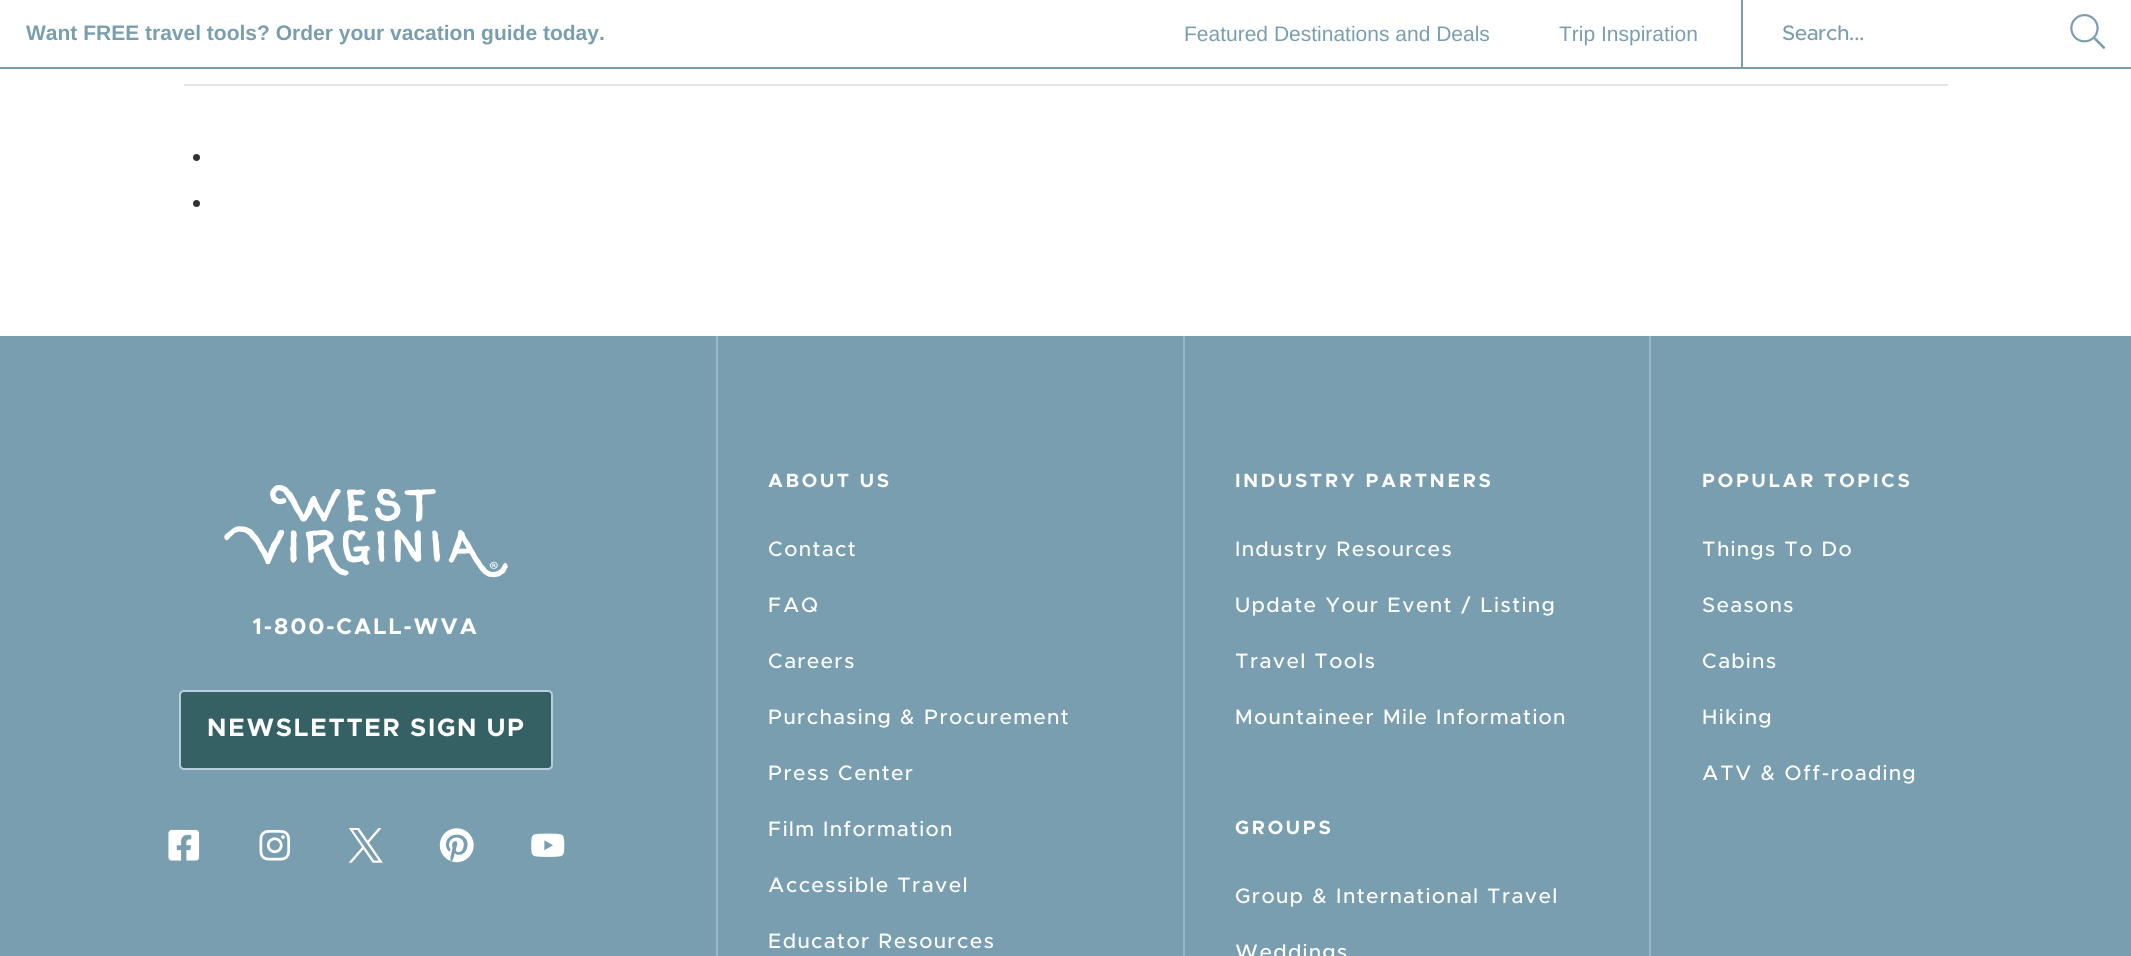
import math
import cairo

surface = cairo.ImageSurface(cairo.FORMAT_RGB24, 2131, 956)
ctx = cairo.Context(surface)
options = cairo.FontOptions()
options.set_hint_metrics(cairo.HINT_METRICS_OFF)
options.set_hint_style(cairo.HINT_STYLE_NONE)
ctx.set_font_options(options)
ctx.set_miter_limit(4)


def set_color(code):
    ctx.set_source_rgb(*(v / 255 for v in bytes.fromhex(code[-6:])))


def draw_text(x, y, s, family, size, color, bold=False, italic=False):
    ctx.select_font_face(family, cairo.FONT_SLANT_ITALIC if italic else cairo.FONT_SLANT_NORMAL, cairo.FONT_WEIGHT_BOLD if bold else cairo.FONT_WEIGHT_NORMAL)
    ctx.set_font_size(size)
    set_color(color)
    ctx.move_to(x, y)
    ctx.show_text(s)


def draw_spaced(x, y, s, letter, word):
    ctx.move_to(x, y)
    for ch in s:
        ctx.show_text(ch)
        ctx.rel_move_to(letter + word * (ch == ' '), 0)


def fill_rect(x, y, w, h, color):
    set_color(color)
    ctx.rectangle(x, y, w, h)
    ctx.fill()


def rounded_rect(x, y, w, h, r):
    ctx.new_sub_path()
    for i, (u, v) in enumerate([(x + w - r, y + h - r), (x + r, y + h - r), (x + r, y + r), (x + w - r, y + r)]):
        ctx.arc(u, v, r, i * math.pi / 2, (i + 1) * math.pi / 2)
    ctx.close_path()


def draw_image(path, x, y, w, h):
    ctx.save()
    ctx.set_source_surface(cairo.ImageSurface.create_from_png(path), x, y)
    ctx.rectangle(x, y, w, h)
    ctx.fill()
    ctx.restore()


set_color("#ffffff")
ctx.paint()
fill_rect(0, 67, 2131, 2, "#789eb0")
draw_text(26, 40, "Want FREE travel tools? Order your vacation guide today.", "Liberation Sans", 21, "#789eb0", bold=True)
draw_text(1184, 41, "Featured Destinations and Deals", "Liberation Sans", 21, "#789eb0")
draw_text(1559, 41, "Trip Inspiration", "Liberation Sans", 21, "#789eb0")
fill_rect(1741, 0, 2, 67, "#789eb0")
draw_text(1782, 40, "Search...", "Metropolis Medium", 21, "#789eb0")
draw_image("assets/img1.png", 2070, 14, 35, 35)
fill_rect(184, 84, 1764, 2, "#e4e4e4")
set_color("#333333")
ctx.arc(196.5, 157.5, 3.5, 0, 2 * math.pi)
ctx.fill()
ctx.arc(196.5, 203.5, 3.5, 0, 2 * math.pi)
ctx.fill()
fill_rect(0, 336, 2131, 620, "#789eb0")
draw_image("assets/img2.png", 224, 485, 284, 93)
ctx.select_font_face("Metropolis", cairo.FONT_SLANT_NORMAL, cairo.FONT_WEIGHT_BOLD)
ctx.set_font_size(22.75)
set_color("#ffffff")
draw_spaced(252, 634, "1-800-CALL-WVA", 1.75, 0)
set_color("#366164")
rounded_rect(180, 691, 372, 78, 4)
ctx.fill_preserve()
set_color("#b6cfdb")
ctx.stroke()
ctx.set_font_size(25.25)
set_color("#ffffff")
draw_spaced(207, 736, "NEWSLETTER SIGN UP", 1.75, 0)
draw_image("assets/img3.png", 168, 829, 32, 32)
draw_image("assets/img4.png", 259, 829, 32, 32)
draw_image("assets/img5.png", 348, 828, 35, 35)
draw_image("assets/img6.png", 439, 828, 35, 35)
draw_image("assets/img7.png", 531, 833, 34, 24)
fill_rect(716, 336, 2, 620, "#97b7c6")
ctx.set_font_size(19.25)
set_color("#ffffff")
draw_spaced(768, 487, "ABOUT US", 2.75, 0)
ctx.select_font_face("Metropolis Medium")
ctx.set_font_size(21)
draw_spaced(768, 556, "Contact", 1.75, 0)
draw_spaced(768, 612, "FAQ", 1.75, 0)
draw_spaced(768, 668, "Careers", 1.75, 0)
draw_spaced(768, 724, "Purchasing & Procurement", 1.75, 0)
draw_spaced(768, 780, "Press Center", 1.75, 0)
draw_spaced(768, 836, "Film Information", 1.75, 0)
draw_spaced(768, 892, "Accessible Travel", 1.75, 0)
draw_spaced(768, 948, "Educator Resources", 1.75, 0)
fill_rect(1183, 336, 2, 620, "#97b7c6")
ctx.select_font_face("Metropolis", cairo.FONT_SLANT_NORMAL, cairo.FONT_WEIGHT_BOLD)
ctx.set_font_size(19.25)
set_color("#ffffff")
draw_spaced(1235, 487, "INDUSTRY PARTNERS", 2.75, 0)
ctx.select_font_face("Metropolis Medium")
ctx.set_font_size(21)
draw_spaced(1235, 556, "Industry Resources", 1.75, 0)
draw_spaced(1235, 612, "Update Your Event / Listing", 1.75, 0)
draw_spaced(1235, 668, "Travel Tools", 1.75, 0)
draw_spaced(1235, 724, "Mountaineer Mile Information", 1.75, 0)
ctx.select_font_face("Metropolis", cairo.FONT_SLANT_NORMAL, cairo.FONT_WEIGHT_BOLD)
ctx.set_font_size(19.25)
draw_spaced(1235, 834, "GROUPS", 2.75, 0)
ctx.select_font_face("Metropolis Medium")
ctx.set_font_size(21)
draw_spaced(1235, 903, "Group & International Travel", 1.75, 0)
draw_spaced(1235, 959, "Weddings", 1.75, 0)
fill_rect(1649, 336, 2, 620, "#97b7c6")
ctx.select_font_face("Metropolis", cairo.FONT_SLANT_NORMAL, cairo.FONT_WEIGHT_BOLD)
ctx.set_font_size(19.25)
set_color("#ffffff")
draw_spaced(1702, 487, "POPULAR TOPICS", 2.75, 0)
ctx.select_font_face("Metropolis Medium")
ctx.set_font_size(21)
draw_spaced(1702, 556, "Things To Do", 1.75, 0)
draw_spaced(1702, 612, "Seasons", 1.75, 0)
draw_spaced(1702, 668, "Cabins", 1.75, 0)
draw_spaced(1702, 724, "Hiking", 1.75, 0)
draw_spaced(1702, 780, "ATV & Off-roading", 1.75, 0)
surface.write_to_png("output.png")
